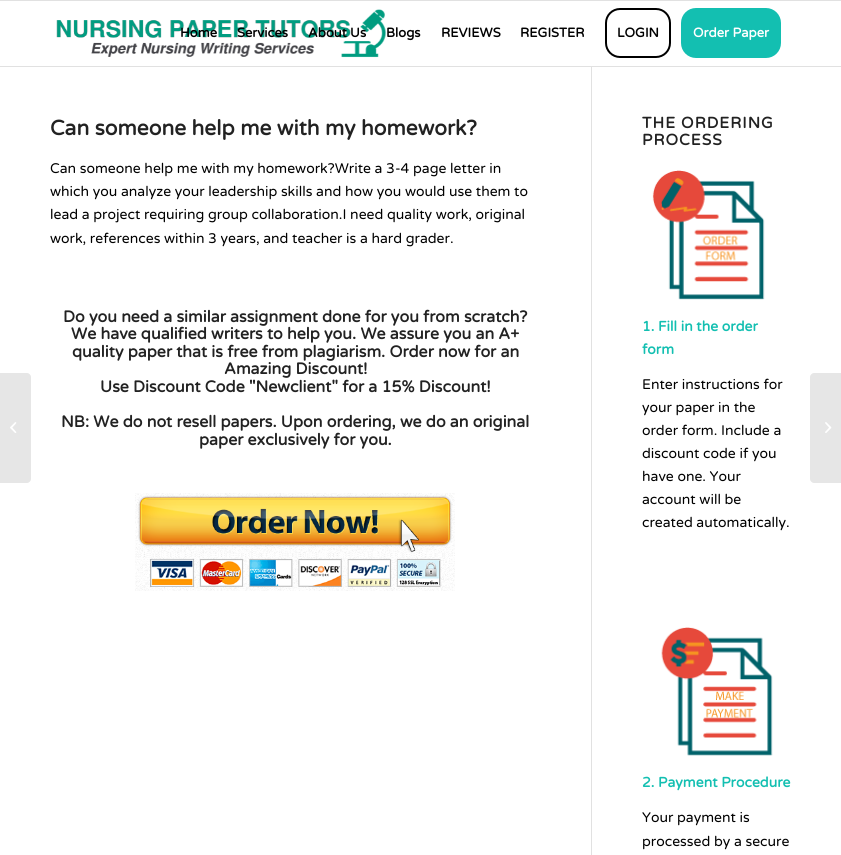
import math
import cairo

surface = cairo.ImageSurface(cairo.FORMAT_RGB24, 841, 855)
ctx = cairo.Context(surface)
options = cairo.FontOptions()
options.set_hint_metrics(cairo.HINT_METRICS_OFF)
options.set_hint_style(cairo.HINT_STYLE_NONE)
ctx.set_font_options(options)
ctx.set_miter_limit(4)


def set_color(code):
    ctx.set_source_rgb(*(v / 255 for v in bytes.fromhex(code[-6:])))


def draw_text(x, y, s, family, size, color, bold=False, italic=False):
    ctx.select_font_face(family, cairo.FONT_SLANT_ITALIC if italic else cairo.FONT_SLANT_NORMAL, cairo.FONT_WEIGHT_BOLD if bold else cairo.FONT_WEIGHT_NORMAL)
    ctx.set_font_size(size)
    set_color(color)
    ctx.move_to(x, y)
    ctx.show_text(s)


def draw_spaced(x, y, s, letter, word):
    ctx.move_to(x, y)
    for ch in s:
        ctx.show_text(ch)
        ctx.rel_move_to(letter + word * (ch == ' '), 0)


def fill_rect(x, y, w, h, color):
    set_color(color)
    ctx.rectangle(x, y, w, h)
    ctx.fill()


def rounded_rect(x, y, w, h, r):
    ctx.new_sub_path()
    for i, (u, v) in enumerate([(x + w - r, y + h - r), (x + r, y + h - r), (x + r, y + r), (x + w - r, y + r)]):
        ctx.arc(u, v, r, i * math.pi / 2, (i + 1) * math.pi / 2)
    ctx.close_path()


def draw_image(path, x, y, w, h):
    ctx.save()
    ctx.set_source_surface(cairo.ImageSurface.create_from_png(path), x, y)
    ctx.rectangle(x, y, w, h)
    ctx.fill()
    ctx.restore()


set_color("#ffffff")
ctx.paint()
fill_rect(0, 0, 841, 1, "#e1e1e1")
fill_rect(591, 65, 1, 790, "#e1e1e1")
fill_rect(0, 66, 841, 1, "#e1e1e1")
draw_image("assets/img1.png", 56, 9, 331, 49)
draw_text(180, 37, "Home", "Varela Round", 13, "#000000", bold=True)
draw_text(237, 37, "Services", "Varela Round", 13, "#000000", bold=True)
draw_text(308, 37, "About Us", "Varela Round", 13, "#000000", bold=True)
draw_text(386, 37, "Blogs", "Varela Round", 13, "#000000", bold=True)
draw_text(441, 37, "REVIEWS", "Varela Round", 13, "#000000", bold=True)
draw_text(520, 37, "REGISTER", "Varela Round", 13, "#000000", bold=True)
rounded_rect(606, 9, 64, 48, 14)
ctx.stroke()
draw_text(617, 37, "LOGIN", "Varela Round", 13, "#000000", bold=True)
set_color("#13bfb1")
rounded_rect(682, 9, 98, 48, 14)
ctx.fill_preserve()
ctx.stroke()
draw_text(693, 37, "Order Paper", "Varela Round", 13, "#ffffff", bold=True)
fill_rect(591, 65, 1, 1, "#ffffff")
set_color("#e6e6e6")
ctx.new_path()
ctx.move_to(0, 373)
ctx.line_to(27, 373)
ctx.curve_to(29, 373, 31, 375, 31, 377)
ctx.line_to(31, 479)
ctx.curve_to(31, 481, 29, 483, 27, 483)
ctx.line_to(0, 483)
ctx.close_path()
ctx.fill()
draw_image("assets/img2.png", 10, 422, 7, 11)
draw_text(50, 135, "Can someone help me with my homework?", "Varela Round", 21, "#222222", bold=True)
draw_text(50, 173, "Can someone help me with my homework?Write a 3-4 page letter in", "Varela Round", 14, "#000000")
draw_text(50, 196, "which you analyze your leadership skills and how you would use them to", "Varela Round", 14, "#000000")
draw_text(50, 219, "lead a project requiring group collaboration.I need quality work, original", "Varela Round", 14, "#000000")
draw_text(50, 243, "work, references within 3 years, and teacher is a hard grader.", "Varela Round", 14, "#000000")
draw_text(63, 322, "Do you need a similar assignment done for you from scratch?", "Varela Round", 16, "#222222", bold=True)
draw_text(71, 339, "We have qualified writers to help you. We assure you an A+", "Varela Round", 16, "#222222", bold=True)
draw_text(72, 357, "quality paper that is free from plagiarism. Order now for an", "Varela Round", 16, "#222222", bold=True)
draw_text(224, 374, "Amazing Discount!", "Varela Round", 16, "#222222", bold=True)
draw_text(100, 392, "Use Discount Code \"Newclient\" for a 15% Discount!", "Varela Round", 16, "#222222", bold=True)
draw_text(61, 427, "NB: We do not resell papers. Upon ordering, we do an original", "Varela Round", 16, "#222222", bold=True)
draw_text(199, 445, "paper exclusively for you.", "Varela Round", 16, "#222222", bold=True)
draw_image("assets/img3.png", 135, 493, 320, 98)
ctx.set_font_size(15.5)
draw_spaced(642, 128, "THE ORDERING", 1, 0)
draw_spaced(642, 145, "PROCESS", 1, 0)
draw_image("assets/img4.png", 652, 170, 113, 130)
draw_text(642, 331, "1. Fill in the order", "Varela Round", 14, "#13bfb1", bold=True)
draw_text(642, 354, "form", "Varela Round", 14, "#13bfb1", bold=True)
draw_text(642, 389, "Enter instructions for", "Varela Round", 14, "#000000")
draw_text(642, 412, "your paper in the", "Varela Round", 14, "#000000")
draw_text(642, 435, "order form. Include a", "Varela Round", 14, "#000000")
draw_text(642, 458, "discount code if you", "Varela Round", 14, "#000000")
draw_text(642, 481, "have one. Your", "Varela Round", 14, "#000000")
draw_text(642, 504, "account will be", "Varela Round", 14, "#000000")
draw_text(642, 527, "created automatically.", "Varela Round", 14, "#000000")
draw_image("assets/img5.png", 661, 627, 112, 129)
draw_text(642, 787, "2. Payment Procedure", "Varela Round", 14, "#13bfb1", bold=True)
draw_text(642, 822, "Your payment is", "Varela Round", 14, "#000000")
draw_text(642, 846, "processed by a secure", "Varela Round", 14, "#000000")
set_color("#e6e6e6")
ctx.new_path()
ctx.move_to(814, 373)
ctx.line_to(841, 373)
ctx.line_to(841, 483)
ctx.line_to(814, 483)
ctx.curve_to(812, 483, 810, 481, 810, 479)
ctx.line_to(810, 377)
ctx.curve_to(810, 375, 812, 373, 814, 373)
ctx.close_path()
ctx.fill()
draw_image("assets/img6.png", 825, 422, 7, 11)
surface.write_to_png("output.png")
